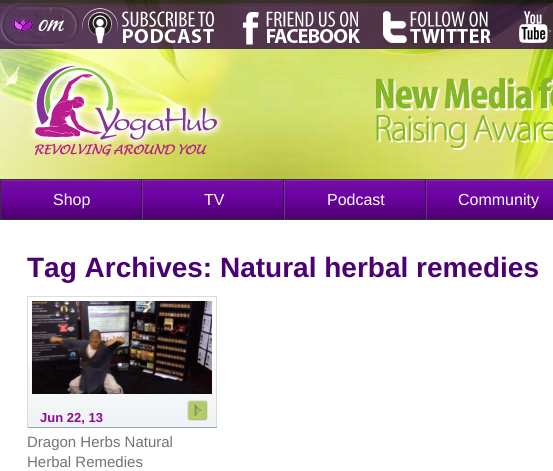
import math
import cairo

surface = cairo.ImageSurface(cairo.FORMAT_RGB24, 553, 471)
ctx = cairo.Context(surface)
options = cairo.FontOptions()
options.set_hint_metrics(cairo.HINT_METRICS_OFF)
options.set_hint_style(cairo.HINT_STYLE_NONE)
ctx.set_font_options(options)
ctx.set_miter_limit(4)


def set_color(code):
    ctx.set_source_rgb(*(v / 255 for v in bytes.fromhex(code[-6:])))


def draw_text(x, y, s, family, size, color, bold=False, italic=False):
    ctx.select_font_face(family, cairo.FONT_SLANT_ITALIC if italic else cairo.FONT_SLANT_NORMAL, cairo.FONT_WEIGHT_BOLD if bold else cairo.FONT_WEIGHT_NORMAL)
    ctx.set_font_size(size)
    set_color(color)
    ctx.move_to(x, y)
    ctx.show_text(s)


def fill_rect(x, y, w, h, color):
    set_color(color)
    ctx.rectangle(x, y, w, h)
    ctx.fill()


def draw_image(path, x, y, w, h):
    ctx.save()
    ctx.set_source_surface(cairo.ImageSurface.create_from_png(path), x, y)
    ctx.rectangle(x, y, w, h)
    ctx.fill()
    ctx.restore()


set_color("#ffffff")
ctx.paint()
draw_image("assets/img1.png", 0, 0, 553, 179)
draw_image("assets/img2.png", 0, 0, 553, 49)
draw_image("assets/img3.png", 0, 5, 79, 41)
draw_image("assets/img4.png", 82, 8, 132, 36)
draw_image("assets/img5.png", 243, 11, 118, 34)
draw_image("assets/img6.png", 383, 11, 108, 32)
draw_image("assets/img7.png", 519, 11, 32, 32)
draw_image("assets/img8.png", 28, 58, 197, 98)
draw_image("assets/img9.png", 376, 77, 177, 73)
draw_image("assets/img10.png", 1, 180, 552, 39)
ctx.rectangle(0.5, 179.5, 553, 40)
set_color("#333333")
ctx.set_line_width(1)
ctx.stroke()
draw_image("assets/img11.png", 141, 180, 2, 39)
draw_text(53, 205, "Shop", "Liberation Sans", 16, "#ffffff")
draw_image("assets/img11.png", 283, 180, 2, 39)
draw_text(204, 205, "TV", "Liberation Sans", 16, "#ffffff")
draw_image("assets/img11.png", 425, 180, 2, 39)
draw_text(327, 205, "Podcast", "Liberation Sans", 16, "#ffffff")
draw_text(458, 205, "Community", "Liberation Sans", 16, "#ffffff")
draw_text(27, 277, "Tag Archives: Natural herbal remedies", "Liberation Sans", 28, "#4b0172", bold=True)
draw_image("assets/img12.png", 28, 362, 188, 65)
fill_rect(27, 296, 190, 1, "#dcdcdc")
fill_rect(216, 296, 1, 132, "#dcdcdc")
fill_rect(27, 427, 190, 1, "#96a6b2")
fill_rect(27, 296, 1, 132, "#dcdcdc")
draw_image("assets/img13.png", 32, 301, 180, 93)
draw_text(40, 422, "Jun 22, 13", "Liberation Sans", 13, "#890b94", bold=True)
draw_image("assets/img14.png", 187, 400, 21, 21)
draw_text(27, 447, "Dragon Herbs Natural", "Liberation Sans", 15, "#737373")
draw_text(27, 467, "Herbal Remedies", "Liberation Sans", 15, "#737373")
surface.write_to_png("output.png")
